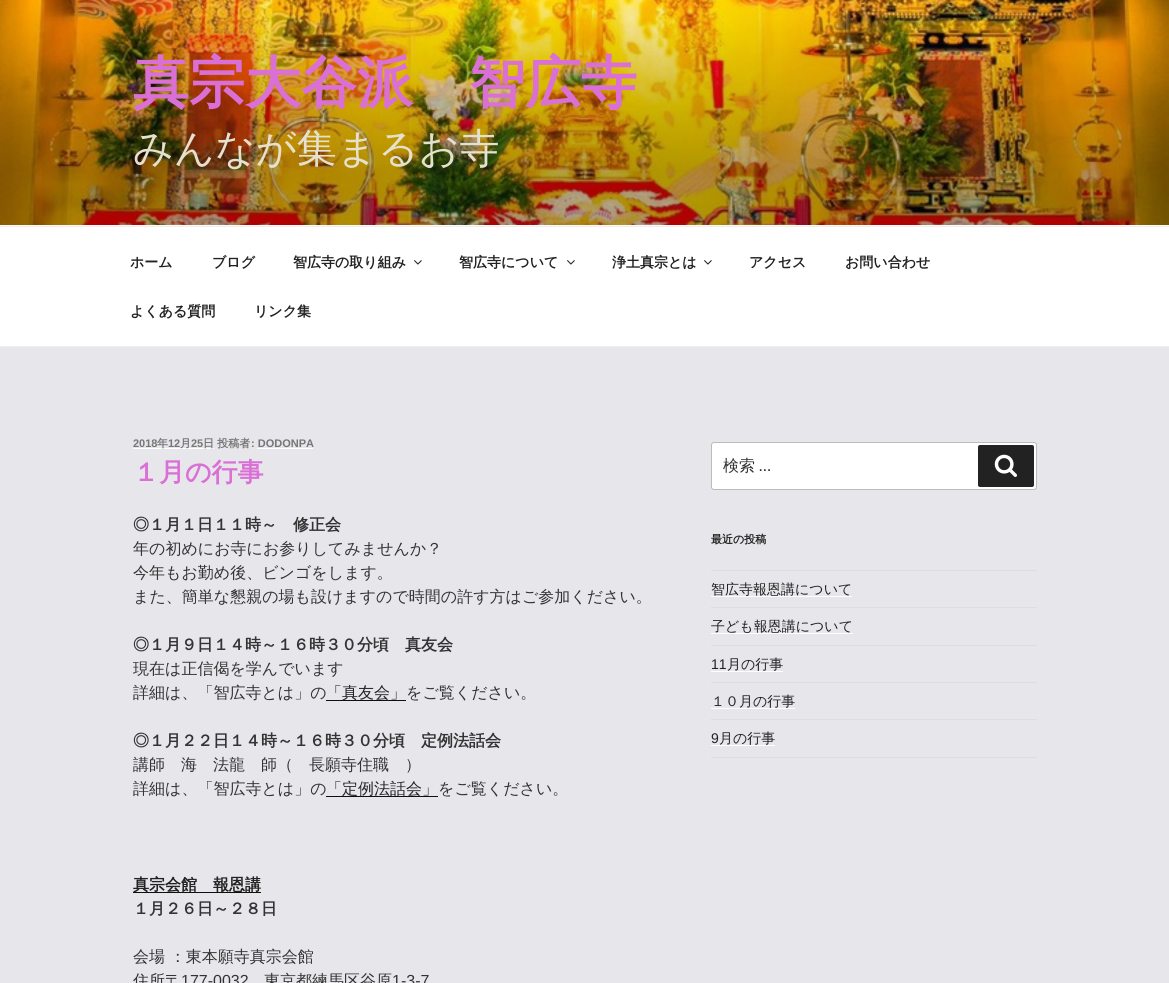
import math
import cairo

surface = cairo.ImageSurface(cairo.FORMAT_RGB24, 1169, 983)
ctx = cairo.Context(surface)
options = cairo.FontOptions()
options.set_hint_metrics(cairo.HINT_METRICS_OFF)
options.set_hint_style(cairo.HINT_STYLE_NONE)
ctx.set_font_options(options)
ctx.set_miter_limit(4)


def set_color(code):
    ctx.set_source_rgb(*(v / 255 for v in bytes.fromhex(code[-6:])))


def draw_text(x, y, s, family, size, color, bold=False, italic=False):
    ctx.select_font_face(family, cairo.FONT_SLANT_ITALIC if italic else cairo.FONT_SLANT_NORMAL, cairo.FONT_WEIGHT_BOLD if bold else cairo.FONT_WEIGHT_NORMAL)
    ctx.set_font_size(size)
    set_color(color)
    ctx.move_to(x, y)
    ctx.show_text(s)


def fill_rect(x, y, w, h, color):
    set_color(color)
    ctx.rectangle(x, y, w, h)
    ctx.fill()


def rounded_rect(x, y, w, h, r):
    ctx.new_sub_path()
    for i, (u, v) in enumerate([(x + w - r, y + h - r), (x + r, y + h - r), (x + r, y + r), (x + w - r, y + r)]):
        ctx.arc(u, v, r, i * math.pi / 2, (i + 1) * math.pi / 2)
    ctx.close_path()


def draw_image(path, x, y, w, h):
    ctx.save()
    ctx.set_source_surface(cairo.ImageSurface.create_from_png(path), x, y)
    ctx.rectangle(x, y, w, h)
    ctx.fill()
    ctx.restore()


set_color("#fafafa")
ctx.paint()
draw_image("assets/img1.png", 0, 0, 1169, 225)
draw_text(133, 102, "真宗大谷派　智広寺", "WenQuanYi Zen Hei", 56, "#da70d6", bold=True)
draw_text(133, 162, "みんなが集まるお寺", "WenQuanYi Zen Hei Medium", 40, "#e6e0cf")
fill_rect(0, 227, 1169, 119, "#ffffff")
fill_rect(0, 226, 1169, 1, "#eeeeee")
fill_rect(0, 346, 1169, 1, "#eeeeee")
draw_text(130, 267, "ホーム", "WenQuanYi Zen Hei", 14, "#222222", bold=True)
draw_text(212, 267, "ブログ", "WenQuanYi Zen Hei", 14, "#222222", bold=True)
draw_text(293, 267, "智広寺の取り組み", "WenQuanYi Zen Hei", 14, "#222222", bold=True)
draw_image("assets/img2.png", 414, 260, 8, 5)
draw_text(459, 267, "智広寺について", "WenQuanYi Zen Hei", 14, "#222222", bold=True)
draw_image("assets/img2.png", 567, 260, 8, 5)
draw_text(612, 267, "浄土真宗とは", "WenQuanYi Zen Hei", 14, "#222222", bold=True)
draw_image("assets/img2.png", 704, 260, 8, 5)
draw_text(749, 267, "アクセス", "WenQuanYi Zen Hei", 14, "#222222", bold=True)
draw_text(845, 267, "お問い合わせ", "WenQuanYi Zen Hei", 14, "#222222", bold=True)
draw_text(130, 316, "よくある質問", "WenQuanYi Zen Hei", 14, "#222222", bold=True)
draw_text(254, 316, "リンク集", "WenQuanYi Zen Hei", 14, "#222222", bold=True)
fill_rect(0, 347, 1169, 636, "#e7e7eb")
draw_text(133, 447, "2018", "Liberation Sans", 11, "#767676", bold=True)
fill_rect(133, 448, 81, 1, "#ffffff")
draw_text(157, 447, "年", "WenQuanYi Zen Hei", 11, "#767676", bold=True)
draw_text(168, 447, "12", "Liberation Sans", 11, "#767676", bold=True)
draw_text(180, 447, "月", "WenQuanYi Zen Hei", 11, "#767676", bold=True)
draw_text(191, 447, "25", "Liberation Sans", 11, "#767676", bold=True)
draw_text(203, 447, "日 投稿者", "WenQuanYi Zen Hei", 11, "#767676", bold=True)
draw_text(251, 447, ": DODONPA", "Liberation Sans", 11, "#767676", bold=True)
fill_rect(257, 448, 56, 1, "#ffffff")
draw_text(133, 481, "１月の行事", "WenQuanYi Zen Hei", 26, "#da70d6", bold=True)
draw_text(133, 530, "◎１月１日１１時～　修正会", "WenQuanYi Zen Hei", 16, "#333333", bold=True)
draw_text(133, 554, "年の初めにお寺にお参りしてみませんか？", "WenQuanYi Zen Hei Medium", 16, "#333333")
draw_text(133, 578, "今年もお勤め後、ビンゴをします。", "WenQuanYi Zen Hei Medium", 16, "#333333")
draw_text(133, 602, "また、簡単な懇親の場も設けますので時間の許す方はご参加ください。", "WenQuanYi Zen Hei Medium", 16, "#333333")
draw_text(133, 650, "◎１月９日１４時～１６時３０分頃　真友会", "WenQuanYi Zen Hei", 16, "#333333", bold=True)
draw_text(133, 674, "現在は正信偈を学んでいます", "WenQuanYi Zen Hei Medium", 16, "#333333")
draw_text(133, 698, "詳細は、「智広寺とは」の", "WenQuanYi Zen Hei Medium", 16, "#333333")
fill_rect(326, 700, 80, 1, "#0f0f0f")
draw_text(326, 698, "「真友会」", "WenQuanYi Zen Hei Medium", 16, "#222222")
draw_text(406, 698, "をご覧ください。", "WenQuanYi Zen Hei Medium", 16, "#333333")
draw_text(133, 746, "◎１月２２日１４時～１６時３０分頃　定例法話会", "WenQuanYi Zen Hei", 16, "#333333", bold=True)
draw_text(133, 770, "講師　海　法龍　師（　長願寺住職　）", "WenQuanYi Zen Hei Medium", 16, "#333333")
draw_text(133, 794, "詳細は、「智広寺とは」の", "WenQuanYi Zen Hei Medium", 16, "#333333")
fill_rect(326, 796, 112, 1, "#0f0f0f")
draw_text(326, 794, "「定例法話会」", "WenQuanYi Zen Hei Medium", 16, "#222222")
draw_text(438, 794, "をご覧ください。", "WenQuanYi Zen Hei Medium", 16, "#333333")
fill_rect(133, 892, 128, 1, "#0f0f0f")
draw_text(133, 890, "真宗会館　報恩講", "WenQuanYi Zen Hei", 16, "#222222", bold=True)
draw_text(133, 914, "１月２６日～２８日", "WenQuanYi Zen Hei", 16, "#333333", bold=True)
draw_text(133, 962, "会場 ：東本願寺真宗会館", "WenQuanYi Zen Hei Medium", 16, "#333333")
draw_text(133, 986, "住所〒", "WenQuanYi Zen Hei Medium", 16, "#333333")
draw_text(181, 986, "177-0032", "Liberation Sans", 16, "#333333")
draw_text(264, 986, "東京都練馬区谷原", "WenQuanYi Zen Hei Medium", 16, "#333333")
draw_text(392, 986, "1-3-7", "Liberation Sans", 16, "#333333")
set_color("#ffffff")
rounded_rect(711.5, 442.5, 325, 47, 2.5)
ctx.fill_preserve()
set_color("#bbbbbb")
ctx.set_line_width(1)
ctx.stroke()
draw_text(723, 471, "検索", "WenQuanYi Zen Hei Medium", 16, "#333333")
draw_text(759, 471, "…", "Libre Franklin", 16, "#333333")
set_color("#222222")
rounded_rect(978, 445, 56, 42, 2)
ctx.fill()
draw_image("assets/img3.png", 994, 454, 23, 23)
draw_text(711, 543, "最近の投稿", "WenQuanYi Zen Hei", 11, "#222222", bold=True)
fill_rect(711, 570, 326, 1, "#dddddd")
fill_rect(711, 607, 326, 1, "#dddddd")
fill_rect(711, 596, 141, 1, "#ffffff")
draw_text(711, 594, "智広寺報恩講について", "WenQuanYi Zen Hei Medium", 14, "#222222")
fill_rect(711, 645, 326, 1, "#dddddd")
fill_rect(711, 633, 142, 1, "#ffffff")
draw_text(711, 631, "子ども報恩講について", "WenQuanYi Zen Hei Medium", 14, "#222222")
fill_rect(711, 682, 326, 1, "#dddddd")
draw_text(711, 669, "11", "Liberation Sans", 14, "#222222")
fill_rect(711, 671, 72, 1, "#ffffff")
draw_text(727, 669, "月の行事", "WenQuanYi Zen Hei Medium", 14, "#222222")
fill_rect(711, 719, 326, 1, "#dddddd")
draw_text(711, 706, "１０月の行事", "WenQuanYi Zen Hei Medium", 14, "#222222")
fill_rect(711, 708, 84, 1, "#ffffff")
fill_rect(711, 757, 326, 1, "#dddddd")
draw_text(711, 743, "9", "Liberation Sans", 14, "#222222")
fill_rect(711, 745, 64, 1, "#ffffff")
draw_text(719, 743, "月の行事", "WenQuanYi Zen Hei Medium", 14, "#222222")
surface.write_to_png("output.png")
